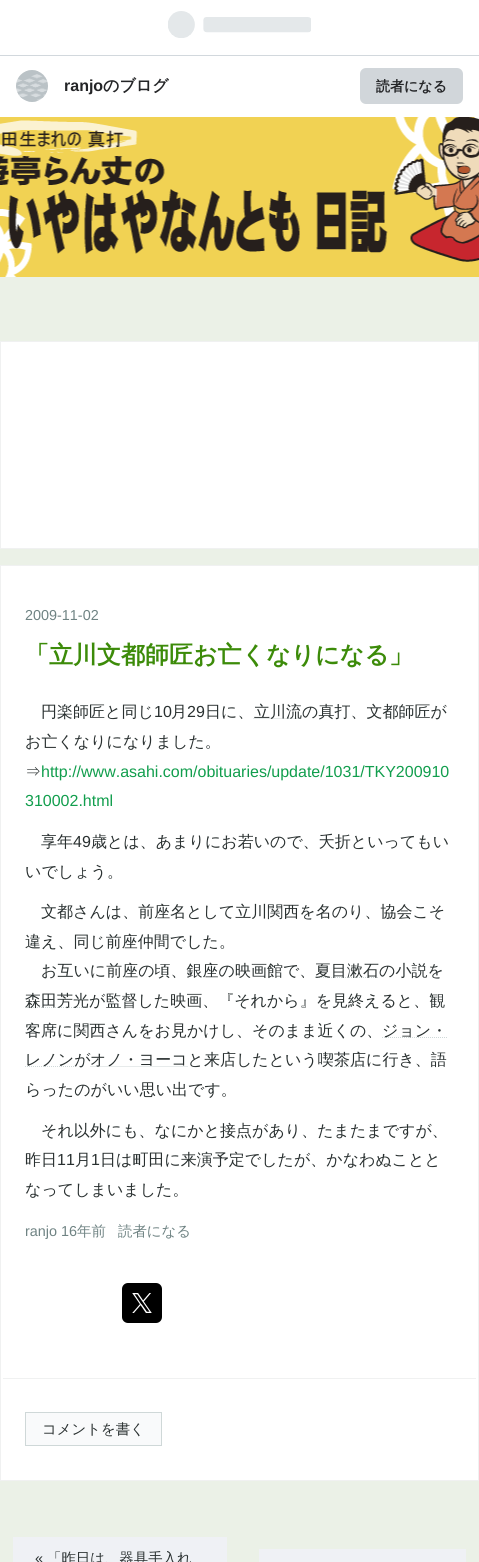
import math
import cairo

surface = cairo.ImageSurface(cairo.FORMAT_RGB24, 479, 1562)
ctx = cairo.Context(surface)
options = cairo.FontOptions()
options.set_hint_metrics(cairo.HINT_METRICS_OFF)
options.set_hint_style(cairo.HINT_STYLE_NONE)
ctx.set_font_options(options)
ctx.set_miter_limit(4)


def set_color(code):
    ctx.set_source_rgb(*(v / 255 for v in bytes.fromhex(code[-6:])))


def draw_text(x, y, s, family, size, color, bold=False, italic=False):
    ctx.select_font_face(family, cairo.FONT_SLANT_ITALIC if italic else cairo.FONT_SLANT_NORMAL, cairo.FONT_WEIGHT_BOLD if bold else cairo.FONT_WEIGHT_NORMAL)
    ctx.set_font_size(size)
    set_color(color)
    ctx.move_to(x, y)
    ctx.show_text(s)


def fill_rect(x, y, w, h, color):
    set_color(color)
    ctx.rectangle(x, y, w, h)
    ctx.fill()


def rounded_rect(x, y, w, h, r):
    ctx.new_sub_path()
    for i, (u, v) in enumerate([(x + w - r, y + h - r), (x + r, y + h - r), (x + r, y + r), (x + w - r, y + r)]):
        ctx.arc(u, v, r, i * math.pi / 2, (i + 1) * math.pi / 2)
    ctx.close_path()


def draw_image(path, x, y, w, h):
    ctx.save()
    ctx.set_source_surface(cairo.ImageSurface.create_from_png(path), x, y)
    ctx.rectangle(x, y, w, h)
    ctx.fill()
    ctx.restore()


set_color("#ebf1e7")
ctx.paint()
fill_rect(0, 0, 479, 55, "#ffffff")
fill_rect(0, 55, 479, 1, "#d2d8dd")
draw_image("assets/img1.png", 168, 11, 143, 27)
fill_rect(0, 56, 479, 61, "#ffffff")
draw_image("assets/img2.png", 16, 70, 32, 32)
draw_text(64, 91, "ranjo", "Liberation Sans", 16, "#242527", bold=True)
draw_text(103, 91, "のブログ", "WenQuanYi Zen Hei", 16, "#242527", bold=True)
set_color("#d1d6da")
rounded_rect(360, 68, 103, 36, 6)
ctx.fill()
draw_text(376, 91, "読者になる", "WenQuanYi Zen Hei", 14, "#242527", bold=True)
draw_image("assets/img3.png", 0, 117, 479, 160)
set_color("#ffffff")
ctx.rectangle(0.5, 341.5, 478, 207)
ctx.fill_preserve()
set_color("#f0f1f1")
ctx.set_line_width(1)
ctx.stroke()
set_color("#ffffff")
ctx.rectangle(0.5, 565.5, 478, 915)
ctx.fill_preserve()
set_color("#f0f1f1")
ctx.stroke()
draw_text(25, 620, "2009-11-02", "Liberation Sans", 14.4, "#6f8383")
draw_text(25, 663, "「立川文都師匠お亡くなりになる」", "WenQuanYi Zen Hei", 24, "#3c8b09", bold=True)
draw_text(41, 717, "円楽師匠と同じ", "WenQuanYi Zen Hei Medium", 16, "#293030")
draw_text(154, 717, "10", "Liberation Sans", 16, "#293030")
draw_text(171, 717, "月", "WenQuanYi Zen Hei Medium", 16, "#293030")
draw_text(187, 717, "29", "Liberation Sans", 16, "#293030")
draw_text(205, 717, "日に、", "WenQuanYi Zen Hei Medium", 16, "#293030")
ctx.new_path()
ctx.move_to(253.5, 718.5)
ctx.line_to(301.5, 718.5)
set_color("#cfd8d8")
ctx.set_dash([1, 1])
ctx.stroke()
draw_text(254, 717, "立川流の真打、文都師匠が", "WenQuanYi Zen Hei Medium", 16, "#293030")
draw_text(25, 747, "お亡くなりになりました。", "WenQuanYi Zen Hei Medium", 16, "#293030")
draw_text(25, 777, "⇒", "WenQuanYi Zen Hei Medium", 16, "#293030")
draw_text(41, 777, "http://www.asahi.com/obituaries/update/1031/TKY200910", "Liberation Sans", 16, "#119e4d")
draw_text(25, 806, "310002.html", "Liberation Sans", 16, "#119e4d")
draw_text(41, 847, "享年", "WenQuanYi Zen Hei Medium", 16, "#293030")
draw_text(73, 847, "49", "Liberation Sans", 16, "#293030")
draw_text(91, 847, "歳とは、あまりにお若いので、夭折といってもい", "WenQuanYi Zen Hei Medium", 16, "#293030")
draw_text(25, 877, "いでしょう。", "WenQuanYi Zen Hei Medium", 16, "#293030")
draw_text(41, 917, "文都さんは、前座名として立川関西を名のり、協会こそ", "WenQuanYi Zen Hei Medium", 16, "#293030")
draw_text(25, 947, "違え、同じ前座仲間でした。", "WenQuanYi Zen Hei Medium", 16, "#293030")
draw_text(41, 976, "お互いに前座の頃、銀座の映画館で、", "WenQuanYi Zen Hei Medium", 16, "#293030")
ctx.new_path()
ctx.move_to(315, 977.5)
ctx.line_to(379, 977.5)
set_color("#cfd8d8")
ctx.stroke()
draw_text(315, 976, "夏目漱石の小説を", "WenQuanYi Zen Hei Medium", 16, "#293030")
ctx.new_path()
ctx.move_to(25, 1007.5)
ctx.line_to(89, 1007.5)
set_color("#cfd8d8")
ctx.stroke()
draw_text(25, 1006, "森田芳光が監督した映画、『それから』を見終えると、観", "WenQuanYi Zen Hei Medium", 16, "#293030")
draw_text(25, 1036, "客席に関西さんをお見かけし、そのまま近くの、", "WenQuanYi Zen Hei Medium", 16, "#293030")
ctx.new_path()
ctx.move_to(382, 1037.5)
ctx.line_to(447.5, 1037.5)
set_color("#cfd8d8")
ctx.stroke()
draw_text(382, 1036, "ジョン・", "WenQuanYi Zen Hei Medium", 16, "#293030")
ctx.new_path()
ctx.move_to(25, 1066.5)
ctx.line_to(74, 1066.5)
set_color("#cfd8d8")
ctx.stroke()
draw_text(25, 1065, "レノンが", "WenQuanYi Zen Hei Medium", 16, "#293030")
ctx.new_path()
ctx.move_to(90.5, 1066.5)
ctx.line_to(188, 1066.5)
set_color("#cfd8d8")
ctx.stroke()
draw_text(90, 1065, "オノ・ヨーコと来店したという喫", "WenQuanYi Zen Hei Medium", 16, "#293030")
ctx.new_path()
ctx.move_to(334, 1066.5)
ctx.line_to(366, 1066.5)
set_color("#cfd8d8")
ctx.stroke()
draw_text(334, 1065, "茶店に行き、語", "WenQuanYi Zen Hei Medium", 16, "#293030")
draw_text(25, 1095, "らったのがいい思い出です。", "WenQuanYi Zen Hei Medium", 16, "#293030")
draw_text(41, 1136, "それ以外にも、なにかと接点があり、たまたまですが、", "WenQuanYi Zen Hei Medium", 16, "#293030")
draw_text(25, 1165, "昨日", "WenQuanYi Zen Hei Medium", 16, "#293030")
draw_text(57, 1165, "11", "Liberation Sans", 16, "#293030")
draw_text(75, 1165, "月", "WenQuanYi Zen Hei Medium", 16, "#293030")
draw_text(91, 1165, "1", "Liberation Sans", 16, "#293030")
draw_text(100, 1165, "日は町田に来演予定でしたが、かなわぬことと", "WenQuanYi Zen Hei Medium", 16, "#293030")
draw_text(25, 1195, "なってしまいました。", "WenQuanYi Zen Hei Medium", 16, "#293030")
draw_text(25, 1236, "ranjo 16", "Liberation Sans", 14.4, "#6f8383")
draw_text(77, 1236, "年前", "WenQuanYi Zen Hei Medium", 14.4, "#6f8383")
draw_text(118, 1236, "読者になる", "WenQuanYi Zen Hei Medium", 14.4, "#6f8383")
set_color("#000000")
rounded_rect(122, 1283, 40, 40, 6)
ctx.fill()
draw_image("assets/img4.png", 132, 1293, 20, 20)
fill_rect(3, 1378, 473, 1, "#f0f1f1")
set_color("#f9fafb")
ctx.rectangle(25.5, 1412.5, 136, 33)
ctx.fill_preserve()
set_color("#cfd8d8")
ctx.set_dash([])
ctx.stroke()
draw_text(42, 1434, "コメントを書く", "WenQuanYi Zen Hei Medium", 14.4, "#293030")
fill_rect(13, 1537, 214, 25, "#eff1f5")
draw_text(35, 1563, "«", "Liberation Sans", 14.4, "#293030")
draw_text(47, 1563, "「昨日は、器具手入れ", "WenQuanYi Zen Hei Medium", 14.4, "#293030")
fill_rect(259, 1549, 207, 13, "#eff1f5")
surface.write_to_png("output.png")
